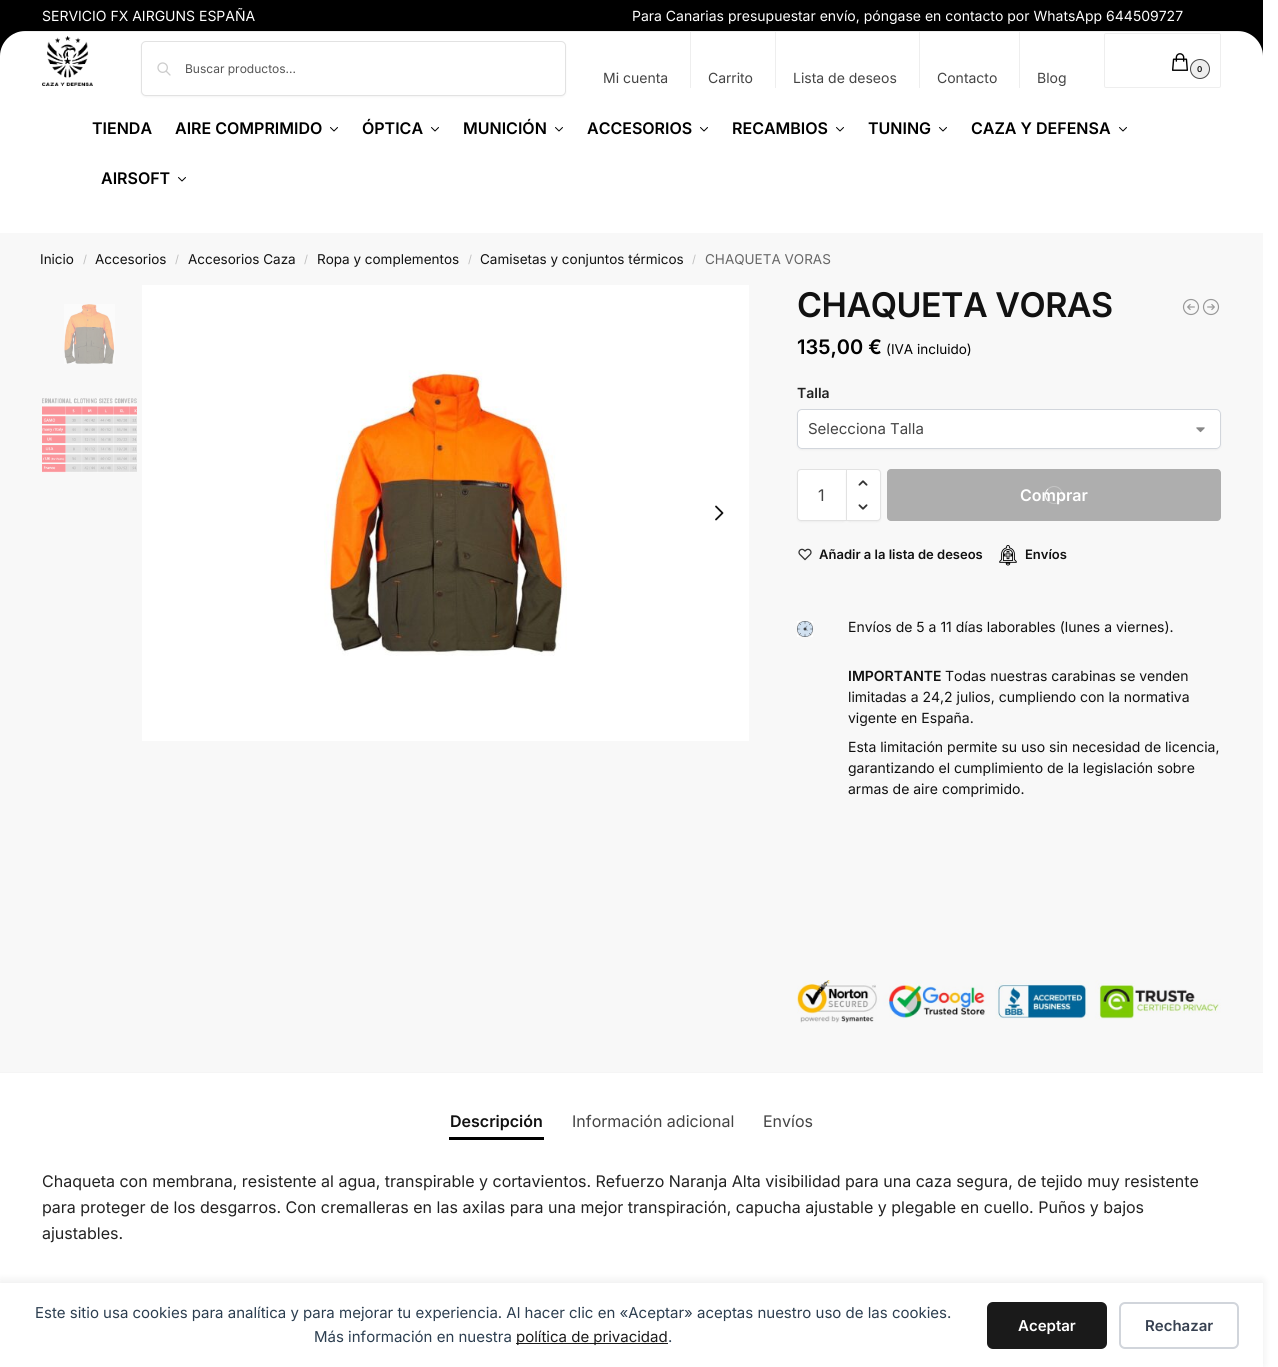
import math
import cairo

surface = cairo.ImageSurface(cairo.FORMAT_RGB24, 1278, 1367)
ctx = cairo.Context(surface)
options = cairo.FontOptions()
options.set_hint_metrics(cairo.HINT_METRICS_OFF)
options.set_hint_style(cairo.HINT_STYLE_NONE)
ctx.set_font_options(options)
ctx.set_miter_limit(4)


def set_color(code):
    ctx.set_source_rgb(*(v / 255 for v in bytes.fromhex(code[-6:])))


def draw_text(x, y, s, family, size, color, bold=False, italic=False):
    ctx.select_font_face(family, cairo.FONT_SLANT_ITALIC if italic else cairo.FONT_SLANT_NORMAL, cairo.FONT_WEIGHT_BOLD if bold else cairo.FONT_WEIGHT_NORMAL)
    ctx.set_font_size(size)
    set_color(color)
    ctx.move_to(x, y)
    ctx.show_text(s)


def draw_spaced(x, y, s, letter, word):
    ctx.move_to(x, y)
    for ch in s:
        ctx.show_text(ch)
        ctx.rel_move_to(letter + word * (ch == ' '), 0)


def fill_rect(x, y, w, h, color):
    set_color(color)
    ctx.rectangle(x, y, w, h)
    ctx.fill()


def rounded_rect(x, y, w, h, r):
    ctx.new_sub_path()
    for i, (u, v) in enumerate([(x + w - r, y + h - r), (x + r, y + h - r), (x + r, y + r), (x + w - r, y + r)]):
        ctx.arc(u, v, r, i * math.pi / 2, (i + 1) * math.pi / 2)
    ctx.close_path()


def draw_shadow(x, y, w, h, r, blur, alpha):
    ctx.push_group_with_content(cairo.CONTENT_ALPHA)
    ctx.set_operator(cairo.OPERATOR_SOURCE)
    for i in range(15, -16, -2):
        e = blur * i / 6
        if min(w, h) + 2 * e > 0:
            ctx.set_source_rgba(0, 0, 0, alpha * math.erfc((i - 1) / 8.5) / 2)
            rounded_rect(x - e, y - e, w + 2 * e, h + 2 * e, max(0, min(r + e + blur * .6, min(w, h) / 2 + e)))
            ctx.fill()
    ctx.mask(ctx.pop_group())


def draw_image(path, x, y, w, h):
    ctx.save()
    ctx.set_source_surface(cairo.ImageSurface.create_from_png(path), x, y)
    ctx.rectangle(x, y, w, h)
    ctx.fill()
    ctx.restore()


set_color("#ffffff")
ctx.paint()
fill_rect(0, 0, 1263, 31, "#000000")
fill_rect(18, 31, 1227, 1, "#eeeeee")
draw_text(42, 21, "SERVICIO FX AIRGUNS ESPAÑA", "Inter", 14, "#ffffff")
draw_text(632, 21, "Para Canarias presupuestar envío, póngase en contacto por WhatsApp 644509727", "Inter", 14, "#ffffff")
set_color("#000000")
ctx.set_fill_rule(cairo.FILL_RULE_EVEN_ODD)
ctx.new_path()
ctx.move_to(25, 31)
ctx.line_to(0, 31)
ctx.line_to(0, 56)
ctx.curve_to(0, 42.5, 11.5, 31, 25, 31)
ctx.close_path()
ctx.fill()
ctx.new_path()
ctx.move_to(1263, 56)
ctx.line_to(1263, 31)
ctx.line_to(1238, 31)
ctx.curve_to(1251.5, 31, 1263, 42.5, 1263, 56)
ctx.close_path()
ctx.fill()
draw_image("assets/img1.png", 42, 36, 51, 50)
set_color("#000000")
draw_shadow(141, 42, 425, 55, 5, 1, 0.05)
set_color("#ffffff")
rounded_rect(141.5, 41.5, 424, 54, 4.5)
ctx.fill_preserve()
set_color("#e2e2e2")
ctx.set_line_width(1)
ctx.stroke()
draw_image("assets/img2.png", 157, 62, 14, 14)
draw_text(185, 73, "Buscar productos...", "Inter", 12, "#555555")
rounded_rect(1104.5, 33.5, 116, 54, 1.5)
set_color("#eeeeee")
ctx.stroke()
draw_image("assets/img3.png", 1172, 53, 16, 18)
ctx.arc(1200, 69, 9.5, 0, 2 * math.pi)
ctx.fill_preserve()
set_color("#444444")
ctx.stroke()
draw_text(1197, 72, "0", "Inter SemiBold", 8, "#111111")
draw_text(603, 83, "Mi cuenta", "Inter", 14, "#444444")
fill_rect(690, 32, 1, 56, "#eeeeee")
draw_text(708, 83, "Carrito", "Inter", 14, "#444444")
fill_rect(775, 32, 1, 56, "#eeeeee")
draw_text(793, 83, "Lista de deseos", "Inter", 14, "#444444")
fill_rect(919, 32, 1, 56, "#eeeeee")
draw_text(937, 83, "Contacto", "Inter", 14, "#444444")
fill_rect(1019, 32, 1, 56, "#eeeeee")
draw_text(1037, 83, "Blog", "Inter", 14, "#444444")
draw_text(92, 134, "TIENDA", "Inter SemiBold", 16, "#000000")
draw_text(175, 134, "AIRE COMPRIMIDO", "Inter SemiBold", 16, "#000000")
ctx.new_path()
ctx.move_to(337.5, 127.5)
ctx.line_to(334, 131)
ctx.line_to(330.5, 127.5)
ctx.set_line_cap(cairo.LINE_CAP_ROUND)
ctx.set_line_join(cairo.LINE_JOIN_ROUND)
ctx.stroke()
draw_text(362, 134, "ÓPTICA", "Inter SemiBold", 16, "#000000")
ctx.new_path()
ctx.move_to(438.5, 127.5)
ctx.line_to(435, 131)
ctx.line_to(431.5, 127.5)
ctx.stroke()
draw_text(463, 134, "MUNICIÓN", "Inter SemiBold", 16, "#000000")
ctx.new_path()
ctx.move_to(562.5, 127.5)
ctx.line_to(559, 131)
ctx.line_to(555.5, 127.5)
ctx.stroke()
draw_text(587, 134, "ACCESORIOS", "Inter SemiBold", 16, "#000000")
ctx.new_path()
ctx.move_to(707.5, 127.5)
ctx.line_to(704, 131)
ctx.line_to(700.5, 127.5)
ctx.stroke()
draw_text(732, 134, "RECAMBIOS", "Inter SemiBold", 16, "#000000")
ctx.new_path()
ctx.move_to(843.5, 127.5)
ctx.line_to(840, 131)
ctx.line_to(836.5, 127.5)
ctx.stroke()
draw_text(868, 134, "TUNING", "Inter SemiBold", 16, "#000000")
ctx.new_path()
ctx.move_to(946.5, 127.5)
ctx.line_to(943, 131)
ctx.line_to(939.5, 127.5)
ctx.stroke()
draw_text(971, 134, "CAZA Y DEFENSA", "Inter SemiBold", 16, "#000000")
ctx.new_path()
ctx.move_to(1126.5, 127.5)
ctx.line_to(1123, 131)
ctx.line_to(1119.5, 127.5)
ctx.stroke()
draw_text(101, 184, "AIRSOFT", "Inter SemiBold", 16, "#000000")
ctx.new_path()
ctx.move_to(185.5, 177.5)
ctx.line_to(182, 181)
ctx.line_to(178.5, 177.5)
ctx.stroke()
fill_rect(0, 233, 1263, 839, "#f8f8f8")
draw_text(40, 264, "Inicio", "Inter", 13.5, "#111111")
draw_text(83, 263, "/", "Inter", 11, "#bebebe")
draw_text(95, 264, "Accesorios", "Inter", 13.5, "#111111")
draw_text(175, 263, "/", "Inter", 11, "#bebebe")
draw_text(188, 264, "Accesorios Caza", "Inter", 13.5, "#111111")
draw_text(304, 263, "/", "Inter", 11, "#bebebe")
draw_text(317, 264, "Ropa y complementos", "Inter", 13.5, "#111111")
draw_text(468, 263, "/", "Inter", 11, "#bebebe")
draw_text(480, 264, "Camisetas y conjuntos térmicos", "Inter", 13.5, "#111111")
draw_text(692, 263, "/", "Inter", 11, "#bebebe")
draw_text(705, 264, "CHAQUETA VORAS", "Inter", 13.5, "#666666")
draw_image("assets/img4.png", 64, 304, 51, 60)
draw_image("assets/img5.png", 42, 398, 95, 75)
fill_rect(142, 285, 607, 456, "#ffffff")
draw_image("assets/img6.png", 324, 370, 243, 286)
ctx.new_path()
ctx.move_to(716, 519.5)
ctx.line_to(722.5, 513)
ctx.line_to(716, 506.5)
set_color("#111111")
ctx.set_line_width(1.8)
ctx.stroke()
ctx.select_font_face("Inter SemiBold")
ctx.set_font_size(34)
draw_spaced(797, 317, "CHAQUETA VORAS", -0.5, 0)
draw_image("assets/img7.png", 1182, 298, 18, 18)
draw_image("assets/img8.png", 1202, 298, 18, 18)
draw_text(797, 354, "135,00 €", "Inter SemiBold", 20, "#000000")
draw_text(886, 354, "(IVA incluido)", "Inter", 13.5, "#000000")
draw_text(797, 398, "Talla", "Inter SemiBold", 14, "#222222")
set_color("#000000")
draw_shadow(797, 410, 424, 40, 5, 1, 0.05)
set_color("#ffffff")
rounded_rect(797, 409, 424, 40, 5)
ctx.fill()
draw_image("assets/img9.png", 1196, 427, 9, 6)
rounded_rect(797.5, 409.5, 423, 39, 4.5)
set_color("#d2d6dc")
ctx.set_line_width(1)
ctx.set_line_cap(cairo.LINE_CAP_BUTT)
ctx.set_line_join(cairo.LINE_JOIN_MITER)
ctx.stroke()
draw_text(808, 434, "Selecciona Talla", "Inter", 15, "#444444")
set_color("#000000")
draw_shadow(797, 470, 50, 52, 4, 1, 0.05)
set_color("#ffffff")
ctx.new_path()
ctx.move_to(801, 469.5)
ctx.line_to(846.5, 469.5)
ctx.line_to(846.5, 520.5)
ctx.line_to(801, 520.5)
ctx.curve_to(799, 520.5, 797.5, 519, 797.5, 517)
ctx.line_to(797.5, 473)
ctx.curve_to(797.5, 471, 799, 469.5, 801, 469.5)
ctx.close_path()
ctx.fill_preserve()
set_color("#e2e2e2")
ctx.stroke()
draw_text(818, 501, "1", "Inter", 16, "#444444")
set_color("#000000")
draw_shadow(846, 470, 35, 52, 4, 1, 0.05)
set_color("#ffffff")
ctx.new_path()
ctx.move_to(846.5, 469.5)
ctx.line_to(877, 469.5)
ctx.curve_to(879, 469.5, 880.5, 471, 880.5, 473)
ctx.line_to(880.5, 517)
ctx.curve_to(880.5, 519, 879, 520.5, 877, 520.5)
ctx.line_to(846.5, 520.5)
ctx.close_path()
ctx.fill_preserve()
set_color("#e2e2e2")
ctx.stroke()
draw_image("assets/img10.png", 858, 480, 10, 6)
draw_image("assets/img11.png", 858, 504, 10, 6)
set_color("#aeaeae")
rounded_rect(887, 469, 334, 52, 4)
ctx.fill()
draw_text(1020, 501, "Comprar", "Inter SemiBold", 16, "#ffffff")
ctx.new_path()
ctx.move_to(1048, 489)
ctx.curve_to(1049.5, 487.5, 1052, 486.5, 1054, 486.5)
ctx.curve_to(1064, 486.5, 1065.5, 501.5, 1055.5, 503.5)
ctx.curve_to(1053, 504, 1050, 503, 1048, 501)
ctx.set_source_rgba(0.973, 0.973, 0.973, 0.3)
ctx.stroke()
ctx.new_path()
ctx.move_to(1048, 501)
ctx.curve_to(1044.5, 497.5, 1044.5, 492.5, 1048, 489)
set_color("#f8f8f8")
ctx.stroke()
draw_image("assets/img12.png", 798, 548, 14, 13)
draw_text(819, 559, "Añadir a la lista de deseos", "Inter SemiBold", 13, "#111111")
draw_image("assets/img13.png", 999, 545, 18, 21)
draw_text(1025, 559, "Envíos", "Inter SemiBold", 13, "#111111")
draw_image("assets/img14.png", 797, 621, 16, 16)
draw_text(848, 632, "Envíos de 5 a 11 días laborables (lunes a viernes).", "Inter", 14, "#111111")
draw_text(848, 681, "IMPORTANTE", "Inter SemiBold", 14, "#111111")
draw_text(945, 681, "Todas nuestras carabinas se venden", "Inter", 14, "#111111")
draw_text(848, 702, "limitadas a 24,2 julios, cumpliendo con la normativa", "Inter", 14, "#111111")
draw_text(848, 723, "vigente en España.", "Inter", 14, "#111111")
draw_text(848, 752, "Esta limitación permite su uso sin necesidad de licencia,", "Inter", 14, "#111111")
draw_text(848, 773, "garantizando el cumplimiento de la legislación sobre", "Inter", 14, "#111111")
draw_text(848, 794, "armas de aire comprimido.", "Inter", 14, "#111111")
draw_image("assets/img15.png", 797, 980, 424, 43)
fill_rect(0, 1072, 1263, 1, "#f5f5f5")
draw_text(450, 1127, "Descripción", "Inter SemiBold", 16, "#111111")
fill_rect(449, 1137, 95, 3, "#000000")
draw_text(572, 1127, "Información adicional", "Inter", 16, "#444444")
draw_text(763, 1127, "Envíos", "Inter", 16, "#444444")
draw_text(42, 1187, "Chaqueta con membrana, resistente al agua, transpirable y cortavientos. Refuerzo Naranja Alta visibilidad para una caza segura, de tejido muy resistente", "Inter", 16, "#222222")
draw_text(42, 1213, "para proteger de los desgarros. Con cremalleras en las axilas para una mejor transpiración, capucha ajustable y plegable en cuello. Puños y bajos", "Inter", 16, "#222222")
draw_text(42, 1239, "ajustables.", "Inter", 16, "#222222")
set_color("#000000")
draw_shadow(0, 1281, 1263, 84, 0, 5, 0.08)
fill_rect(0, 1283, 1263, 84, "#ffffff")
draw_text(35, 1318, "Este sitio usa cookies para analítica y para mejorar tu experiencia. Al hacer clic en «Aceptar» aceptas nuestro uso de las cookies.", "Inter", 15, "#2c3e50")
draw_text(314, 1342, "Más información en nuestra", "Inter", 15, "#2c3e50")
fill_rect(516, 1343, 152, 1, "#1a1a1a")
draw_text(516, 1342, "política de privacidad", "Inter", 15, "#1a1a1a")
draw_text(668, 1342, ".", "Inter", 15, "#2c3e50")
set_color("#1a1a1a")
rounded_rect(987, 1302, 120, 47, 6)
ctx.fill()
draw_text(1018, 1331, "Aceptar", "Inter SemiBold", 15, "#ffffff")
rounded_rect(1120, 1303, 118, 45, 5)
set_color("#d1d5db")
ctx.set_line_width(2)
ctx.stroke()
draw_text(1145, 1331, "Rechazar", "Inter SemiBold", 15, "#374151")
surface.write_to_png("output.png")
